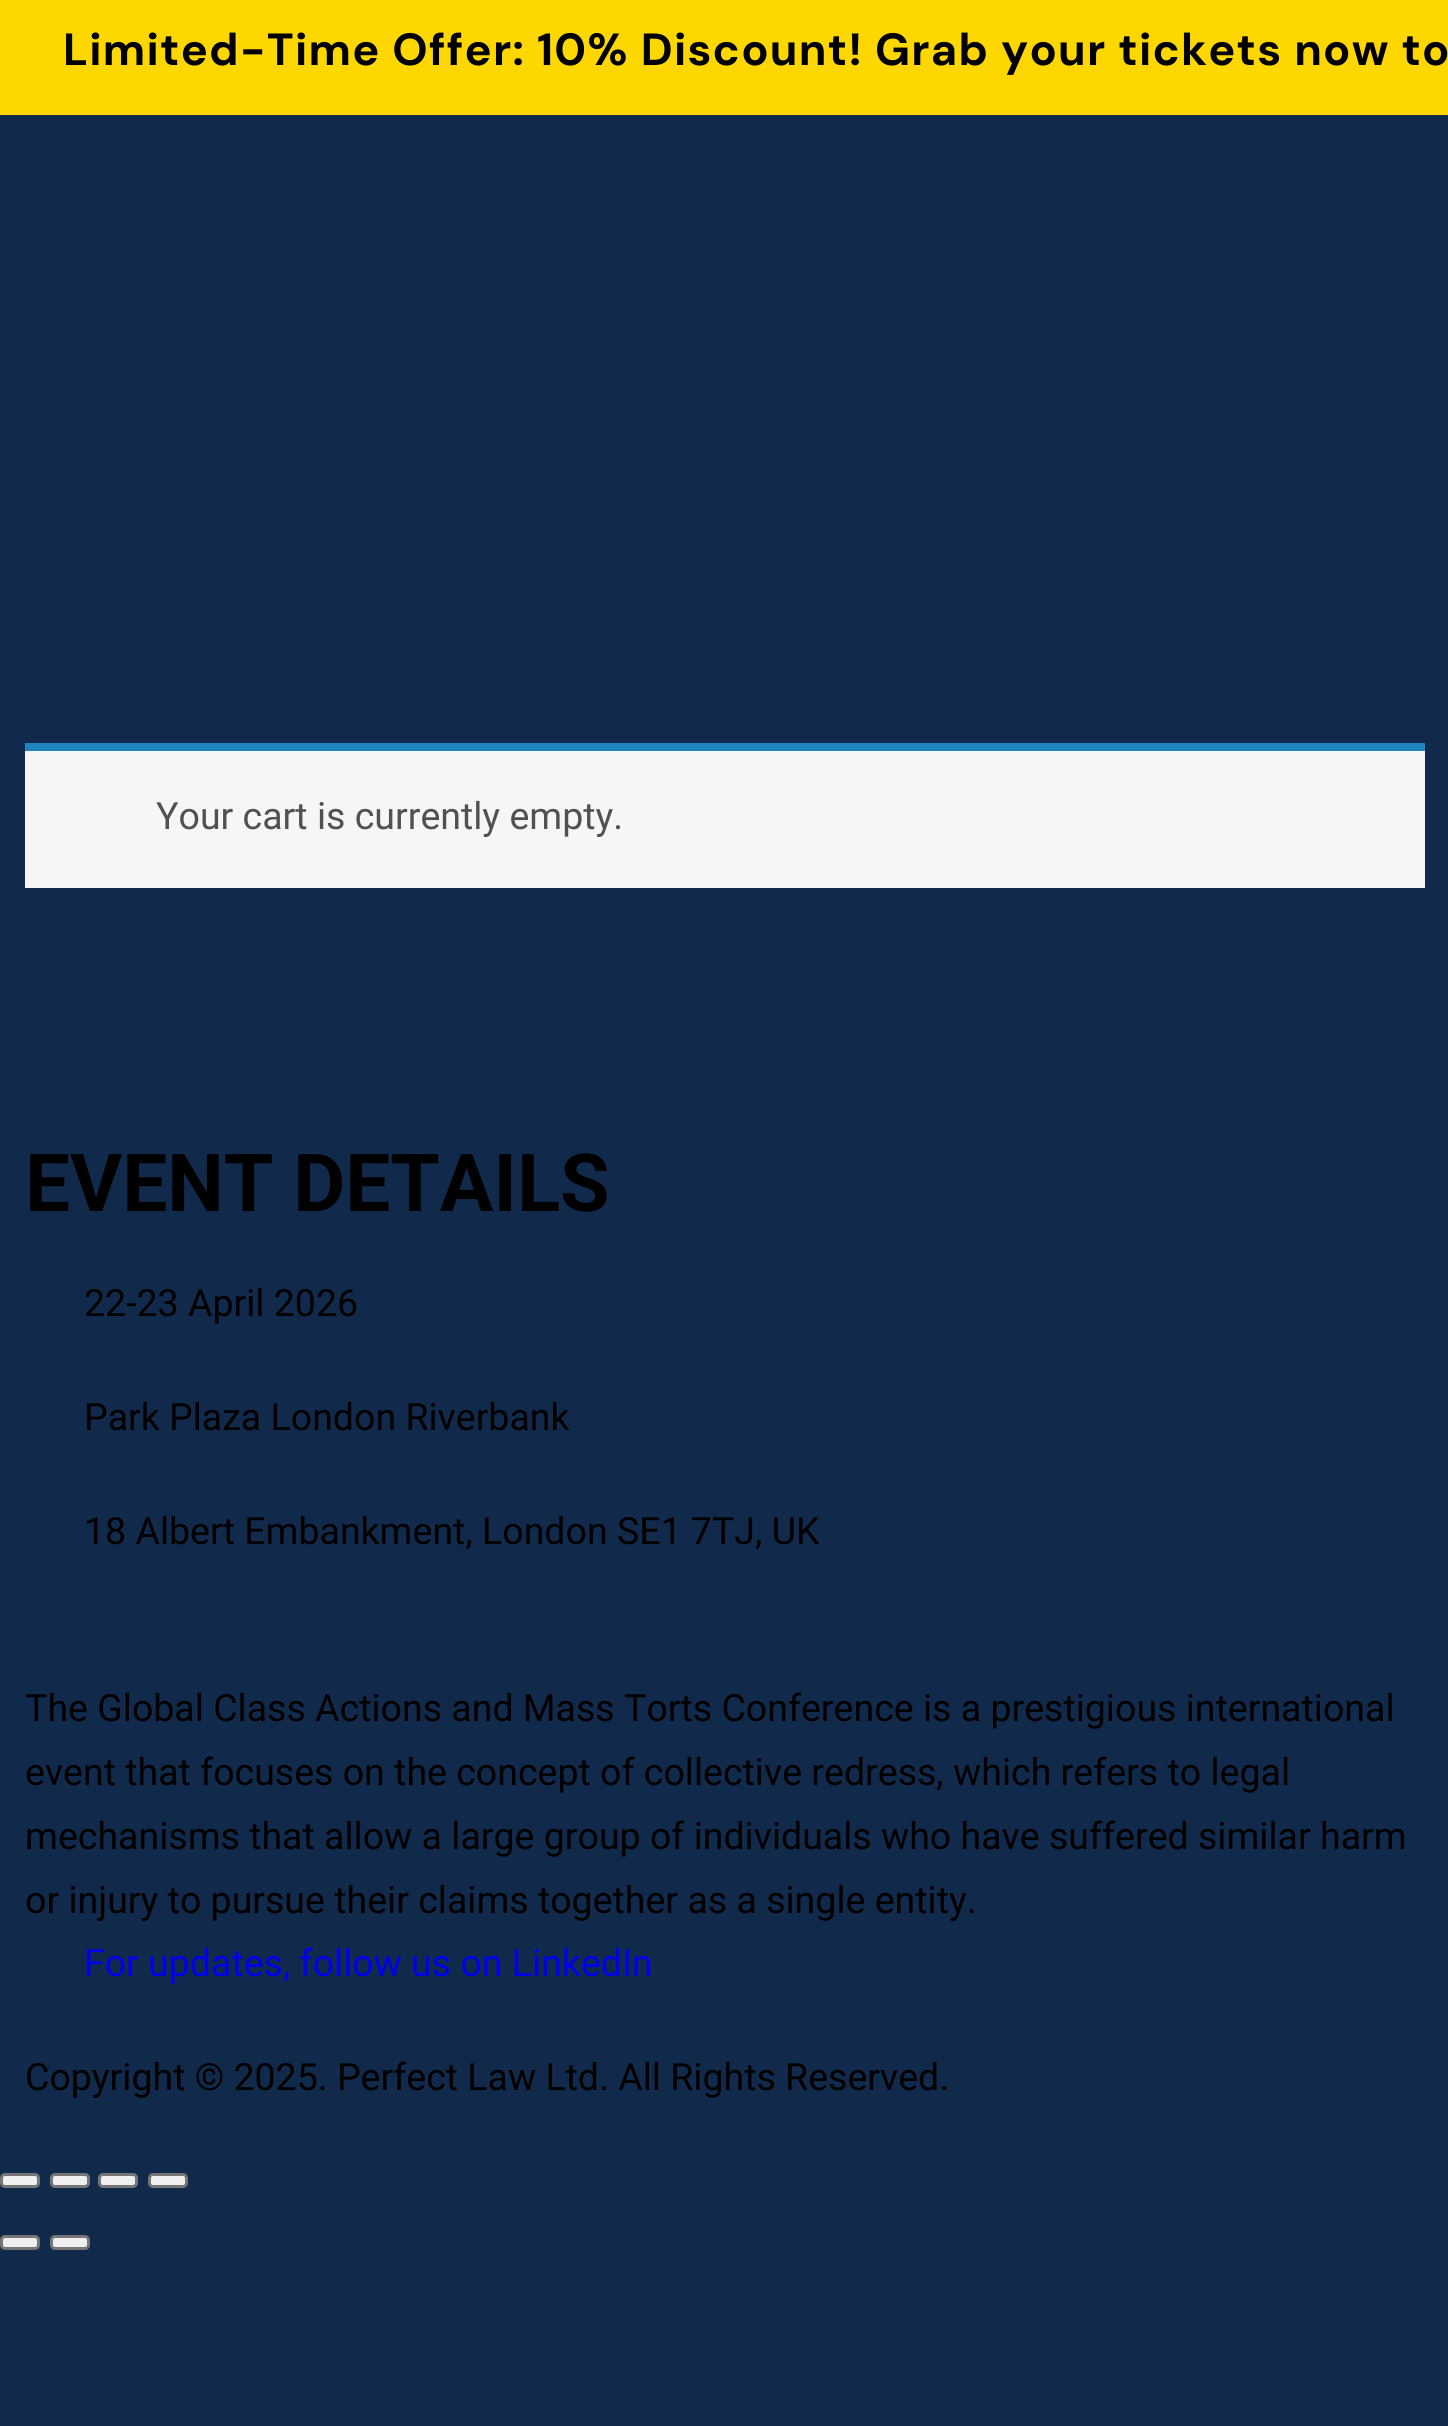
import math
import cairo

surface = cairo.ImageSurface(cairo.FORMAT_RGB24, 1448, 2426)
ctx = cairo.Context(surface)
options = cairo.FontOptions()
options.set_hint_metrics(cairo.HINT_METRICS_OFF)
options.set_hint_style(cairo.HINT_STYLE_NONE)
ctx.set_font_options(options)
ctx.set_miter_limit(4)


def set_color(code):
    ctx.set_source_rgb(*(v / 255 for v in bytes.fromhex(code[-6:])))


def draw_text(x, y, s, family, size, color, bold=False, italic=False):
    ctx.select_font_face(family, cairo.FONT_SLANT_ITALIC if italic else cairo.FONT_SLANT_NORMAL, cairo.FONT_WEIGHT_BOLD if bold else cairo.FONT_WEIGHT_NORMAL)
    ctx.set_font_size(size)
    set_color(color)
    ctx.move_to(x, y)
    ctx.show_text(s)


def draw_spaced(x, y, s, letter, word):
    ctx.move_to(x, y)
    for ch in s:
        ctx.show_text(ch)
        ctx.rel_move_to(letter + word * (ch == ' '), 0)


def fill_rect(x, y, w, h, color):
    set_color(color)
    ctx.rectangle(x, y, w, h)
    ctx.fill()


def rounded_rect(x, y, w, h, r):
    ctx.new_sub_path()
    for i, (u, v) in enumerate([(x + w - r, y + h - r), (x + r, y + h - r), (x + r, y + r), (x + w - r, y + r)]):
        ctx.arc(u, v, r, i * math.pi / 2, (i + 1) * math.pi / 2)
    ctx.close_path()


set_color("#112a4b")
ctx.paint()
fill_rect(0, 0, 1448, 115, "#ffd700")
ctx.select_font_face("DM Sans", cairo.FONT_SLANT_NORMAL, cairo.FONT_WEIGHT_BOLD)
ctx.set_font_size(45)
set_color("#000000")
draw_spaced(63, 65, "Limited-Time Offer: 10% Discount! Grab your tickets now to", 1.25, 0)
fill_rect(25, 751, 1400, 137, "#f6f5f8")
fill_rect(25, 743, 1400, 8, "#1e85be")
draw_text(156, 829, "Your cart is currently empty.", "Roboto", 37.5, "#515151")
draw_text(25, 1211, "EVENT DETAILS", "Roboto", 80, "#000000", bold=True)
draw_text(84, 1316, "22-23 April 2026", "Roboto", 37.5, "#000000")
draw_text(84, 1430, "Park Plaza London Riverbank", "Roboto", 37.5, "#000000")
draw_text(84, 1544, "18 Albert Embankment, London SE1 7TJ, UK", "Roboto", 37.5, "#000000")
draw_text(25, 1721, "The Global Class Actions and Mass Torts Conference is a prestigious international", "Roboto", 37.5, "#000000")
draw_text(25, 1785, "event that focuses on the concept of collective redress, which refers to legal", "Roboto", 37.5, "#000000")
draw_text(25, 1849, "mechanisms that allow a large group of individuals who have suffered similar harm", "Roboto", 37.5, "#000000")
draw_text(25, 1913, "or injury to pursue their claims together as a single entity.", "Roboto", 37.5, "#000000")
draw_text(84, 1976, "For updates, follow us on LinkedIn", "Roboto", 37.5, "#0000ee")
draw_text(25, 2090, "Copyright © 2025. Perfect Law Ltd. All Rights Reserved.", "Roboto", 37.5, "#000000")
set_color("#efefef")
rounded_rect(1.5, 2174.5, 37, 12, 3.5)
ctx.fill_preserve()
set_color("#767676")
ctx.set_line_width(3)
ctx.stroke()
set_color("#efefef")
rounded_rect(51.5, 2174.5, 37, 12, 3.5)
ctx.fill_preserve()
set_color("#767676")
ctx.stroke()
set_color("#efefef")
rounded_rect(99.5, 2174.5, 37, 12, 3.5)
ctx.fill_preserve()
set_color("#767676")
ctx.stroke()
set_color("#efefef")
rounded_rect(149.5, 2174.5, 37, 12, 3.5)
ctx.fill_preserve()
set_color("#767676")
ctx.stroke()
set_color("#efefef")
rounded_rect(1.5, 2236.5, 37, 12, 3.5)
ctx.fill_preserve()
set_color("#767676")
ctx.stroke()
set_color("#efefef")
rounded_rect(51.5, 2236.5, 37, 12, 3.5)
ctx.fill_preserve()
set_color("#767676")
ctx.stroke()
surface.write_to_png("output.png")
